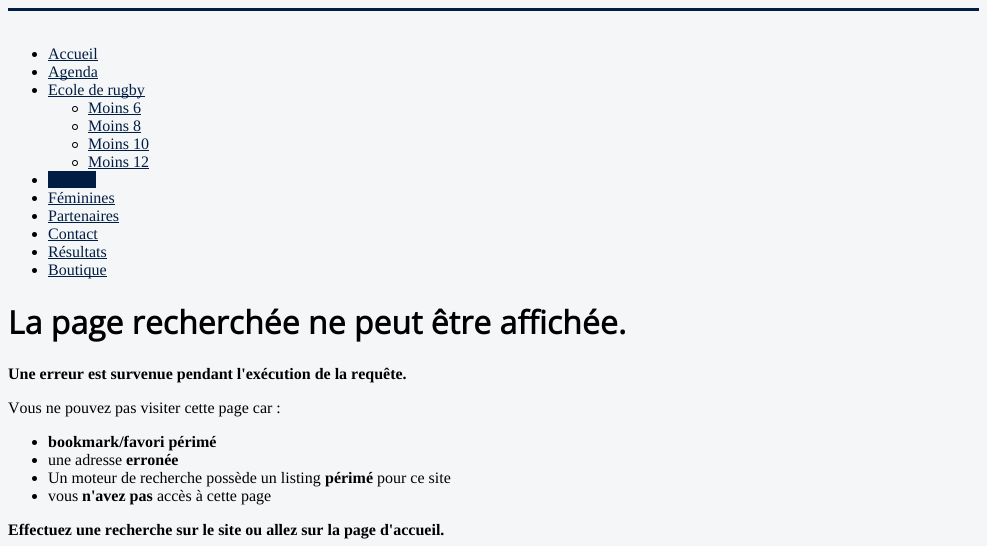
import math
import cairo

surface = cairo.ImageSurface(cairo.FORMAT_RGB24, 987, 546)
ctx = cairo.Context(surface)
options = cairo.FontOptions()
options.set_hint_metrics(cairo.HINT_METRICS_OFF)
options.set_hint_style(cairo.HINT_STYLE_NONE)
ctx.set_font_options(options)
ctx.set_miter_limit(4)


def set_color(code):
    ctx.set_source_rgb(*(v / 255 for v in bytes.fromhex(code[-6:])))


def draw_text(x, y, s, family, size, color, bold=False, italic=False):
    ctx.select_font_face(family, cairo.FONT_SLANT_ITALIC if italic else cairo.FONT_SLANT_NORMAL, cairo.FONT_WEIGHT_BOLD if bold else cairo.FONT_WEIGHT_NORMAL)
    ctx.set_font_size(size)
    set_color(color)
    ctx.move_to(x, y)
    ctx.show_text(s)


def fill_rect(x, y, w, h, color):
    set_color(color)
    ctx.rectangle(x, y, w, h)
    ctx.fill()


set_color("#f4f6f7")
ctx.paint()
fill_rect(8, 8, 971, 3, "#021d44")
set_color("#000000")
ctx.arc(34.5, 54.5, 2.5, 0, 2 * math.pi)
ctx.fill()
draw_text(48, 59, "Accueil", "Liberation Serif", 16, "#021d44")
fill_rect(48, 60, 50, 1, "#021d44")
set_color("#000000")
ctx.new_path()
ctx.arc(34.5, 72.5, 2.5, 0, 2 * math.pi)
ctx.fill()
fill_rect(48, 78, 50, 1, "#021d44")
draw_text(48, 77, "Agenda", "Liberation Serif", 16, "#021d44")
set_color("#000000")
ctx.new_path()
ctx.arc(34.5, 90.5, 2.5, 0, 2 * math.pi)
ctx.fill()
fill_rect(48, 96, 97, 1, "#021d44")
draw_text(48, 95, "Ecole de rugby", "Liberation Serif", 16, "#021d44")
ctx.new_path()
ctx.arc(75, 109, 2.5, 0, 2 * math.pi)
set_color("#000000")
ctx.set_line_width(1)
ctx.stroke()
draw_text(88, 113, "Moins 6", "Liberation Serif", 16, "#021d44")
fill_rect(88, 114, 53, 1, "#021d44")
ctx.new_path()
ctx.arc(75, 127, 2.5, 0, 2 * math.pi)
set_color("#000000")
ctx.stroke()
draw_text(88, 131, "Moins 8", "Liberation Serif", 16, "#021d44")
fill_rect(88, 132, 53, 1, "#021d44")
ctx.new_path()
ctx.arc(75, 145, 2.5, 0, 2 * math.pi)
set_color("#000000")
ctx.stroke()
draw_text(88, 149, "Moins 10", "Liberation Serif", 16, "#021d44")
fill_rect(88, 150, 61, 1, "#021d44")
ctx.new_path()
ctx.arc(75, 163, 2.5, 0, 2 * math.pi)
set_color("#000000")
ctx.stroke()
draw_text(88, 167, "Moins 12", "Liberation Serif", 16, "#021d44")
fill_rect(88, 168, 61, 1, "#021d44")
set_color("#000000")
ctx.new_path()
ctx.arc(34.5, 180.5, 2.5, 0, 2 * math.pi)
ctx.fill()
fill_rect(48, 171, 48, 17, "#021d44")
set_color("#000000")
ctx.arc(34.5, 198.5, 2.5, 0, 2 * math.pi)
ctx.fill()
draw_text(48, 203, "Féminines", "Liberation Serif", 16, "#021d44")
fill_rect(48, 204, 67, 1, "#021d44")
set_color("#000000")
ctx.new_path()
ctx.arc(34.5, 216.5, 2.5, 0, 2 * math.pi)
ctx.fill()
draw_text(48, 221, "Partenaires", "Liberation Serif", 16, "#021d44")
fill_rect(48, 222, 71, 1, "#021d44")
set_color("#000000")
ctx.new_path()
ctx.arc(34.5, 234.5, 2.5, 0, 2 * math.pi)
ctx.fill()
draw_text(48, 239, "Contact", "Liberation Serif", 16, "#021d44")
fill_rect(48, 240, 50, 1, "#021d44")
set_color("#000000")
ctx.new_path()
ctx.arc(34.5, 252.5, 2.5, 0, 2 * math.pi)
ctx.fill()
draw_text(48, 257, "Résultats", "Liberation Serif", 16, "#021d44")
fill_rect(48, 258, 59, 1, "#021d44")
set_color("#000000")
ctx.new_path()
ctx.arc(34.5, 270.5, 2.5, 0, 2 * math.pi)
ctx.fill()
fill_rect(48, 276, 59, 1, "#021d44")
draw_text(48, 275, "Boutique", "Liberation Serif", 16, "#021d44")
draw_text(8, 334, "La page recherchée ne peut être affichée.", "Open Sans", 32, "#000000", bold=True)
draw_text(8, 379, "Une erreur est survenue pendant l'exécution de la requête.", "Liberation Serif", 16, "#000000", bold=True)
draw_text(8, 413, "Vous ne pouvez pas visiter cette page car :", "Liberation Serif", 16, "#000000")
ctx.new_path()
ctx.arc(34.5, 442.5, 2.5, 0, 2 * math.pi)
ctx.fill()
draw_text(48, 447, "bookmark/favori périmé", "Liberation Serif", 16, "#000000", bold=True)
ctx.new_path()
ctx.arc(34.5, 460.5, 2.5, 0, 2 * math.pi)
ctx.fill()
draw_text(48, 465, "une adresse", "Liberation Serif", 16, "#000000")
draw_text(126, 465, "erronée", "Liberation Serif", 16, "#000000", bold=True)
ctx.new_path()
ctx.arc(34.5, 478.5, 2.5, 0, 2 * math.pi)
ctx.fill()
draw_text(48, 483, "Un moteur de recherche possède un listing", "Liberation Serif", 16, "#000000")
draw_text(325, 483, "périmé", "Liberation Serif", 16, "#000000", bold=True)
draw_text(377, 483, "pour ce site", "Liberation Serif", 16, "#000000")
ctx.new_path()
ctx.arc(34.5, 496.5, 2.5, 0, 2 * math.pi)
ctx.fill()
draw_text(48, 501, "vous", "Liberation Serif", 16, "#000000")
draw_text(82, 501, "n'avez pas", "Liberation Serif", 16, "#000000", bold=True)
draw_text(157, 501, "accès à cette page", "Liberation Serif", 16, "#000000")
draw_text(8, 535, "Effectuez une recherche sur le site ou allez sur la page d'accueil.", "Liberation Serif", 16, "#000000", bold=True)
surface.write_to_png("output.png")
